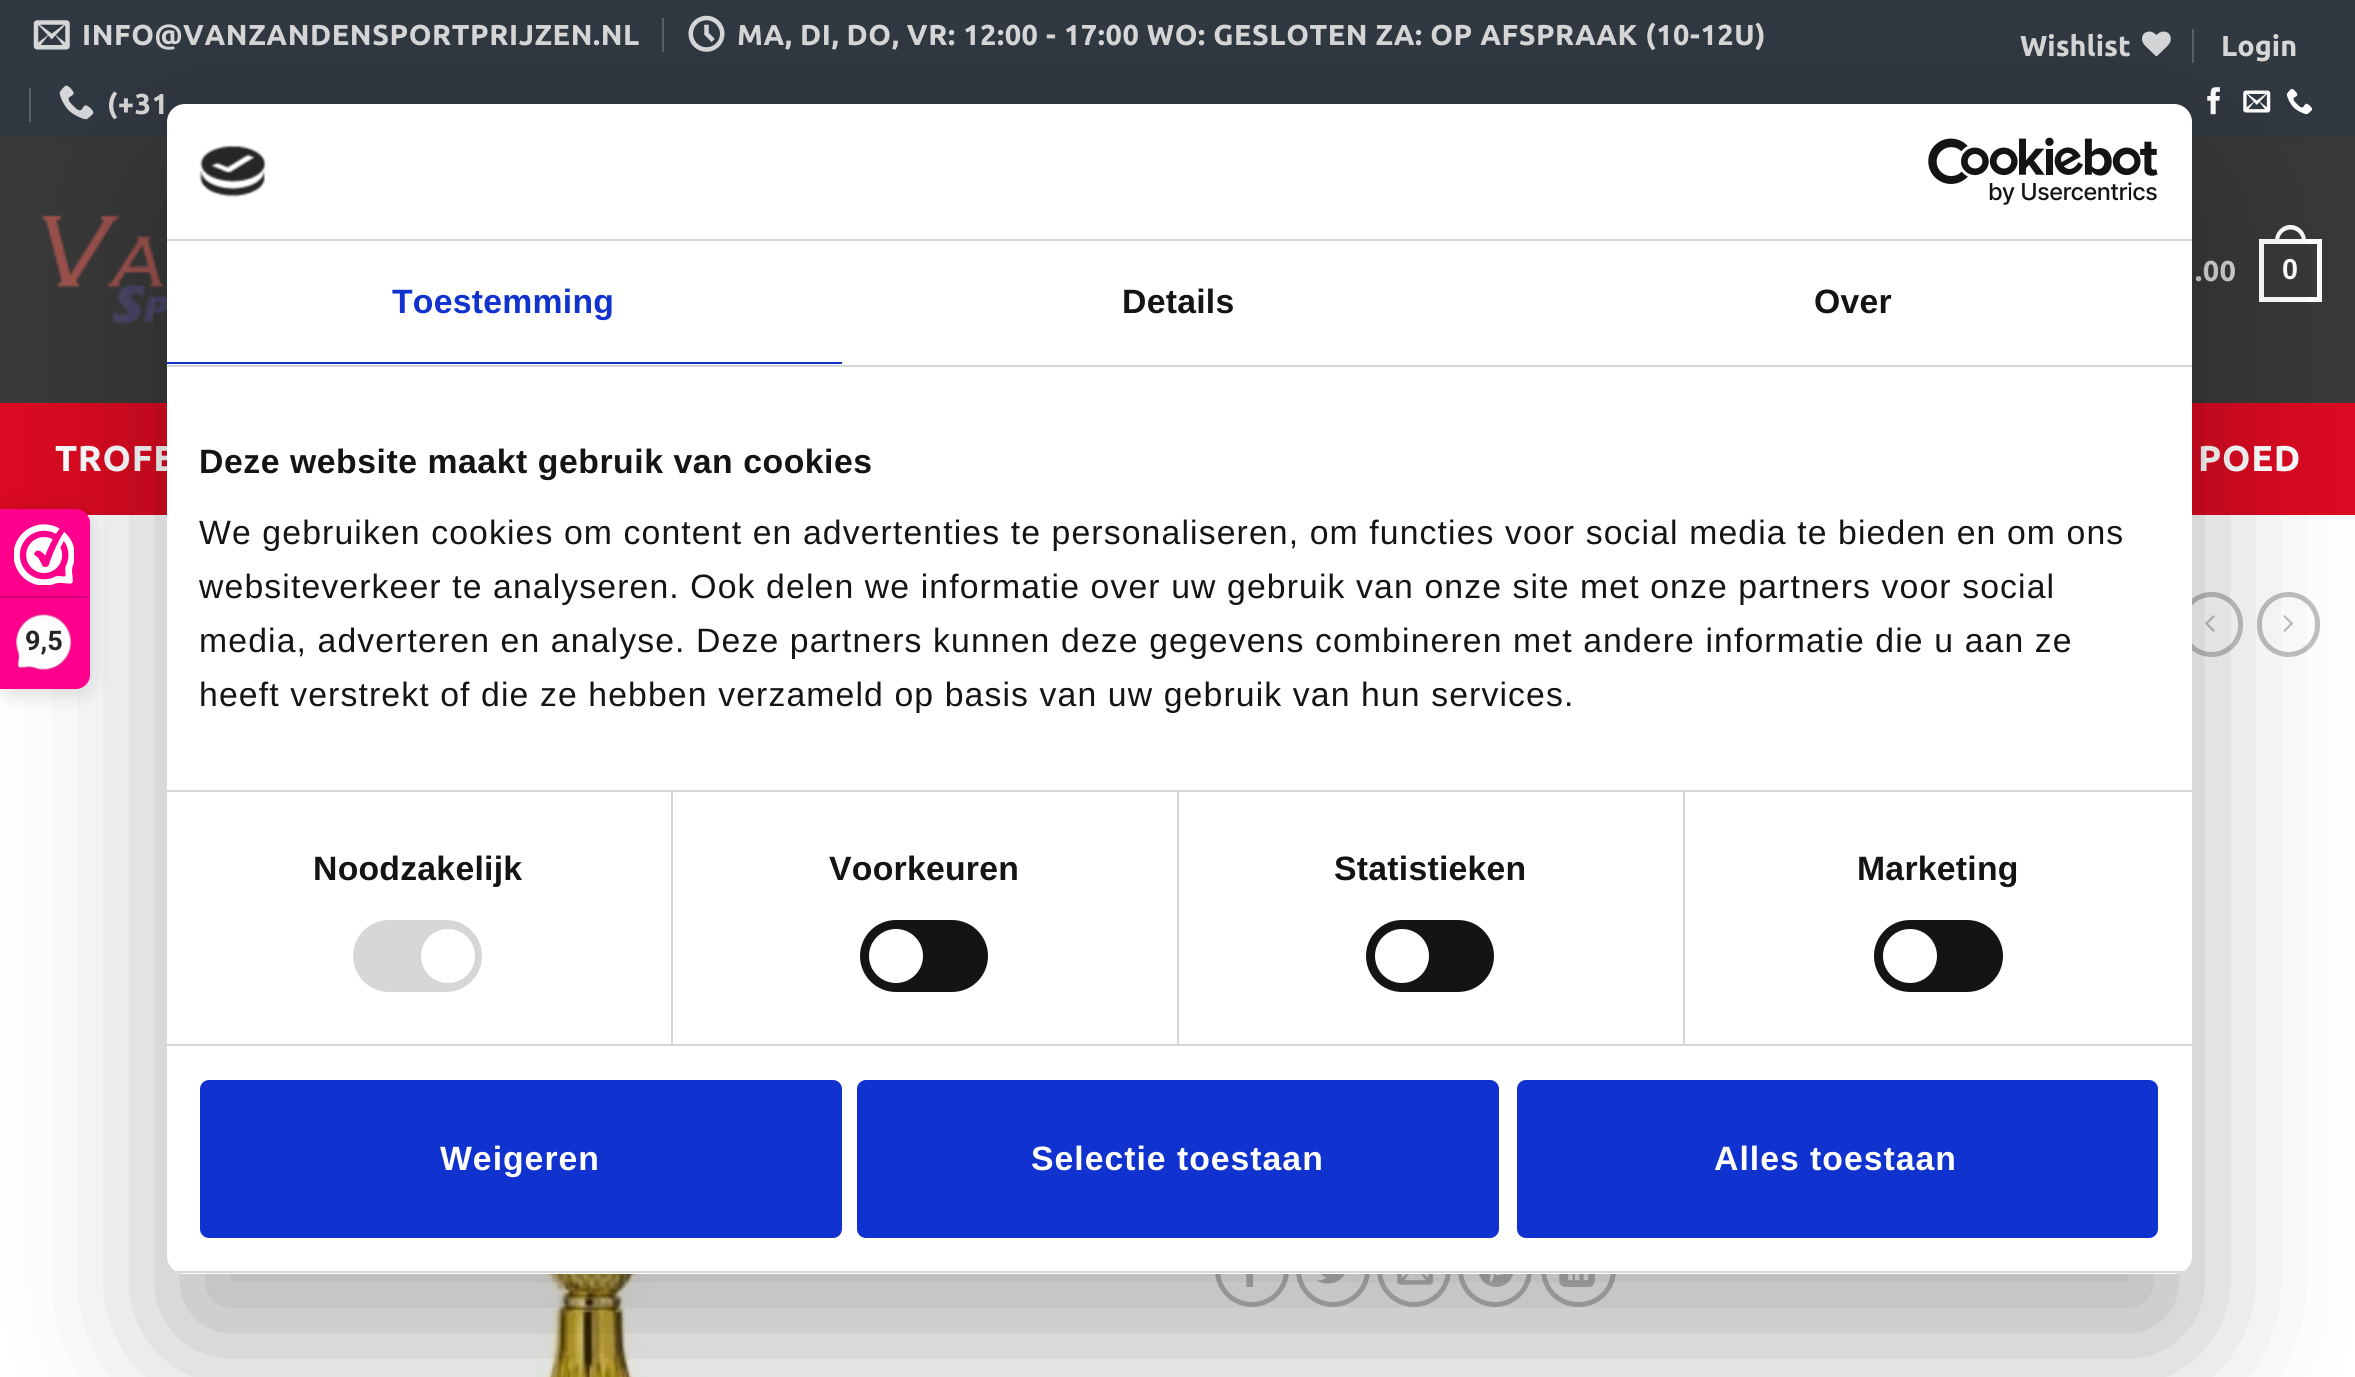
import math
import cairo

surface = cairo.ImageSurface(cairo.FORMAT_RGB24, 2355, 1377)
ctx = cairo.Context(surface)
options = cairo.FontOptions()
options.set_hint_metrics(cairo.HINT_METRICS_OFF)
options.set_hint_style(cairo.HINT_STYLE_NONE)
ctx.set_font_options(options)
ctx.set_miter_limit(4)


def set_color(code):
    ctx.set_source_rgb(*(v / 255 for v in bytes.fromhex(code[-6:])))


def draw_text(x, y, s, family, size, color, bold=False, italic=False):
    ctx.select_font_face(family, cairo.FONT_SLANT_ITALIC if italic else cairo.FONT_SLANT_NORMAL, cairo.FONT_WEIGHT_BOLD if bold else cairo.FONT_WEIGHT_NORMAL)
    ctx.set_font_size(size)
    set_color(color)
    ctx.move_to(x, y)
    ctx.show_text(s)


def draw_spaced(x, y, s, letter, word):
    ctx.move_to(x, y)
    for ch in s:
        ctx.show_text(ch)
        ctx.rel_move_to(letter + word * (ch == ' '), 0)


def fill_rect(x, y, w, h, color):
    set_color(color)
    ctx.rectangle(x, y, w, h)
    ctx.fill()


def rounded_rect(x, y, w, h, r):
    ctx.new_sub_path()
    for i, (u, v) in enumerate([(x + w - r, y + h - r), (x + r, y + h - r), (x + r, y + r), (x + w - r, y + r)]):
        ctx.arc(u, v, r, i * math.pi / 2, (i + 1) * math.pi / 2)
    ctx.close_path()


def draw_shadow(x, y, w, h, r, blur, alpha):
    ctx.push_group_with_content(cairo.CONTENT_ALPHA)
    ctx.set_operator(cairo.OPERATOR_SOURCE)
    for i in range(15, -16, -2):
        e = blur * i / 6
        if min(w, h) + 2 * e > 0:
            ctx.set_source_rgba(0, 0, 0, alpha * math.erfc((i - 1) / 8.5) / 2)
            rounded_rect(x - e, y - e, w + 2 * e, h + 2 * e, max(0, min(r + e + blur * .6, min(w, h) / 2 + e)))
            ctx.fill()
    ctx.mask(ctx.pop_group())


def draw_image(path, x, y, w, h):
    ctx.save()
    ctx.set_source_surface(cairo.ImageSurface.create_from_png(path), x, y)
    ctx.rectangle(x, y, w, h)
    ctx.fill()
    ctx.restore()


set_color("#ffffff")
ctx.paint()
fill_rect(0, 0, 2355, 137, "#303841")
draw_image("assets/img1.png", 33, 20, 37, 30)
ctx.select_font_face("Ubuntu", cairo.FONT_SLANT_NORMAL, cairo.FONT_WEIGHT_BOLD)
ctx.set_font_size(28.8)
set_color("#d7d7d7")
draw_spaced(82, 45, "INFO@VANZANDENSPORTPRIJZEN.NL", 0.58, 0)
fill_rect(662, 18, 2, 34, "#596067")
draw_image("assets/img2.png", 688, 15, 37, 37)
set_color("#d7d7d7")
draw_spaced(737, 45, "MA, DI, DO, VR: 12:00 - 17:00 WO: GESLOTEN ZA: OP AFSPRAAK (10-12U)", 0.58, 0)
fill_rect(29, 88, 2, 34, "#596067")
draw_image("assets/img3.png", 59, 85, 35, 35)
set_color("#d7d7d7")
draw_spaced(107, 114, "(+31", 0.58, 0)
draw_text(2020, 56, "Wishlist", "Ubuntu", 28.8, "#d7d7d7", bold=True)
draw_image("assets/img4.png", 2142, 31, 29, 26)
fill_rect(2192, 29, 2, 34, "#596067")
draw_text(2221, 56, "Login", "Ubuntu", 28.8, "#d7d7d7", bold=True)
draw_image("assets/img5.png", 2207, 87, 13, 28)
draw_image("assets/img6.png", 2243, 90, 28, 23)
draw_image("assets/img7.png", 2286, 88, 27, 27)
fill_rect(0, 137, 2355, 266, "#393939")
draw_image("assets/img8.png", 42, 215, 125, 110)
set_color("#d7d7d7")
draw_spaced(2195, 281, ".00", 0.58, 0)
ctx.rectangle(2261.5, 241.5, 58, 58)
set_color("#ffffff")
ctx.set_line_width(5)
ctx.stroke()
ctx.set_fill_rule(cairo.FILL_RULE_EVEN_ODD)
ctx.new_path()
ctx.move_to(2290.5, 225)
ctx.curve_to(2299, 225, 2306, 232, 2306, 241)
ctx.line_to(2306, 243)
ctx.line_to(2275, 243)
ctx.line_to(2275, 241)
ctx.curve_to(2275, 232, 2282, 225, 2290.5, 225)
ctx.close_path()
ctx.move_to(2290.5, 229.5)
ctx.curve_to(2296.5, 229.5, 2302, 234.5, 2302, 241)
ctx.line_to(2302, 243)
ctx.line_to(2279, 243)
ctx.line_to(2279, 241)
ctx.curve_to(2279, 234.5, 2284.5, 229.5, 2290.5, 229.5)
ctx.close_path()
ctx.fill()
ctx.select_font_face("Liberation Sans", cairo.FONT_SLANT_NORMAL, cairo.FONT_WEIGHT_BOLD)
draw_spaced(2282, 279, "0", 0.58, 0)
fill_rect(0, 403, 2355, 112, "#da0a22")
ctx.select_font_face("Ubuntu", cairo.FONT_SLANT_NORMAL, cairo.FONT_WEIGHT_BOLD)
ctx.set_font_size(36)
set_color("#ffffff")
draw_spaced(55, 471, "TROFE", 0.75, 0)
draw_spaced(2198, 471, "POED", 0.75, 0)
rounded_rect(2182.5, 594.5, 58, 60, 29)
set_color("#c0c0c0")
ctx.stroke()
draw_image("assets/img9.png", 2205, 615, 10, 17)
rounded_rect(2259.5, 594.5, 58, 60, 29)
ctx.stroke()
draw_image("assets/img10.png", 2283, 615, 11, 17)
draw_image("assets/img11.png", 402, 1274, 375, 103)
ctx.arc(1252, 1270, 34.5, 0, 2 * math.pi)
ctx.stroke()
draw_image("assets/img12.png", 1246, 1274, 8, 13)
ctx.arc(1333, 1270, 34.5, 0, 2 * math.pi)
ctx.stroke()
draw_image("assets/img13.png", 1316, 1274, 29, 10)
ctx.arc(1414, 1270, 34.5, 0, 2 * math.pi)
ctx.stroke()
draw_image("assets/img14.png", 1397, 1274, 36, 11)
ctx.arc(1495, 1270, 34.5, 0, 2 * math.pi)
ctx.stroke()
draw_image("assets/img15.png", 1479, 1274, 35, 13)
rounded_rect(1543.5, 1235.5, 70, 69, 34.5)
ctx.stroke()
draw_image("assets/img16.png", 1559, 1274, 36, 13)
set_color("#000000")
draw_shadow(0, 513, 90, 180, 14, 11, 0.15)
draw_shadow(167, 176, 2025, 1170, 18, 76.5, 0.3)
set_color("#fe008c")
ctx.new_path()
ctx.move_to(0, 509)
ctx.line_to(76, 509)
ctx.curve_to(83.5, 509, 90, 515.5, 90, 523)
ctx.line_to(90, 675)
ctx.curve_to(90, 682.5, 83.5, 689, 76, 689)
ctx.line_to(0, 689)
ctx.close_path()
ctx.fill()
draw_image("assets/img17.png", 14, 524, 60, 61)
fill_rect(0, 596, 88, 2, "#d80077")
draw_image("assets/img18.png", 16, 614, 56, 57)
draw_text(25, 650, "9,5", "Roboto", 27, "#272626", bold=True)
set_color("#ffffff")
rounded_rect(167, 104, 2025, 1170, 18)
ctx.fill()
fill_rect(167, 239, 2025, 2, "#d6d6d6")
draw_image("assets/img19.png", 199, 145, 67, 52)
draw_image("assets/img20.png", 1928, 137, 230, 68)
fill_rect(167, 365, 2025, 2, "#d6d6d6")
fill_rect(167, 362, 675, 2, "#1032cf")
ctx.select_font_face("Liberation Sans", cairo.FONT_SLANT_NORMAL, cairo.FONT_WEIGHT_BOLD)
ctx.set_font_size(33.75)
draw_spaced(392, 313, "Toestemming", 0.25, 0)
set_color("#141414")
draw_spaced(1122, 313, "Details", 0.25, 0)
draw_spaced(1814, 313, "Over", 0.25, 0)
fill_rect(167, 790, 2025, 2, "#d6d6d6")
set_color("#141414")
draw_spaced(199, 473, "Deze website maakt gebruik van cookies", 0.55, 0)
ctx.select_font_face("Liberation Sans")
draw_spaced(199, 544, "We gebruiken cookies om content en advertenties te personaliseren, om functies voor social media te bieden en om ons", 1.12, 0)
draw_spaced(199, 598, "websiteverkeer te analyseren. Ook delen we informatie over uw gebruik van onze site met onze partners voor social", 1.12, 0)
draw_spaced(199, 652, "media, adverteren en analyse. Deze partners kunnen deze gegevens combineren met andere informatie die u aan ze", 1.12, 0)
draw_spaced(199, 706, "heeft verstrekt of die ze hebben verzameld op basis van uw gebruik van hun services.", 1.12, 0)
fill_rect(167, 1044, 2025, 2, "#d6d6d6")
fill_rect(671, 792, 2, 252, "#d6d6d6")
ctx.select_font_face("Liberation Sans", cairo.FONT_SLANT_NORMAL, cairo.FONT_WEIGHT_BOLD)
set_color("#141414")
draw_spaced(313, 880, "Noodzakelijk", 0.25, 0)
set_color("#d6d6d6")
rounded_rect(353, 920, 129, 72, 36)
ctx.fill()
set_color("#ffffff")
ctx.arc(448, 956, 27, 0, 2 * math.pi)
ctx.fill()
fill_rect(1177, 792, 2, 252, "#d6d6d6")
set_color("#141414")
draw_spaced(829, 880, "Voorkeuren", 0.25, 0)
rounded_rect(860, 920, 128, 72, 36)
ctx.fill()
set_color("#ffffff")
ctx.arc(896, 956, 27, 0, 2 * math.pi)
ctx.fill()
fill_rect(1683, 792, 2, 252, "#d6d6d6")
set_color("#141414")
draw_spaced(1334, 880, "Statistieken", 0.25, 0)
rounded_rect(1366, 920, 128, 72, 36)
ctx.fill()
set_color("#ffffff")
ctx.arc(1402, 956, 27, 0, 2 * math.pi)
ctx.fill()
set_color("#141414")
draw_spaced(1857, 880, "Marketing", 0.25, 0)
rounded_rect(1874, 920, 129, 72, 36)
ctx.fill()
set_color("#ffffff")
ctx.arc(1910, 956, 27, 0, 2 * math.pi)
ctx.fill()
ctx.save()
ctx.set_fill_rule(cairo.FILL_RULE_WINDING)
rounded_rect(167, 104, 2025, 1170, 18)
ctx.clip()
fill_rect(167, 1271, 2025, 2, "#d6d6d6")
ctx.restore()
set_color("#1032cf")
rounded_rect(202.5, 1082.5, 637, 153, 6.5)
ctx.fill_preserve()
ctx.stroke()
set_color("#ffffff")
draw_spaced(440, 1170, "Weigeren", 1, 0)
set_color("#1032cf")
rounded_rect(859.5, 1082.5, 637, 153, 6.5)
ctx.fill_preserve()
ctx.stroke()
set_color("#ffffff")
draw_spaced(1031, 1170, "Selectie toestaan", 1, 0)
set_color("#1032cf")
rounded_rect(1519.5, 1082.5, 636, 153, 6.5)
ctx.fill_preserve()
ctx.stroke()
set_color("#ffffff")
draw_spaced(1714, 1170, "Alles toestaan", 1, 0)
surface.write_to_png("output.png")
